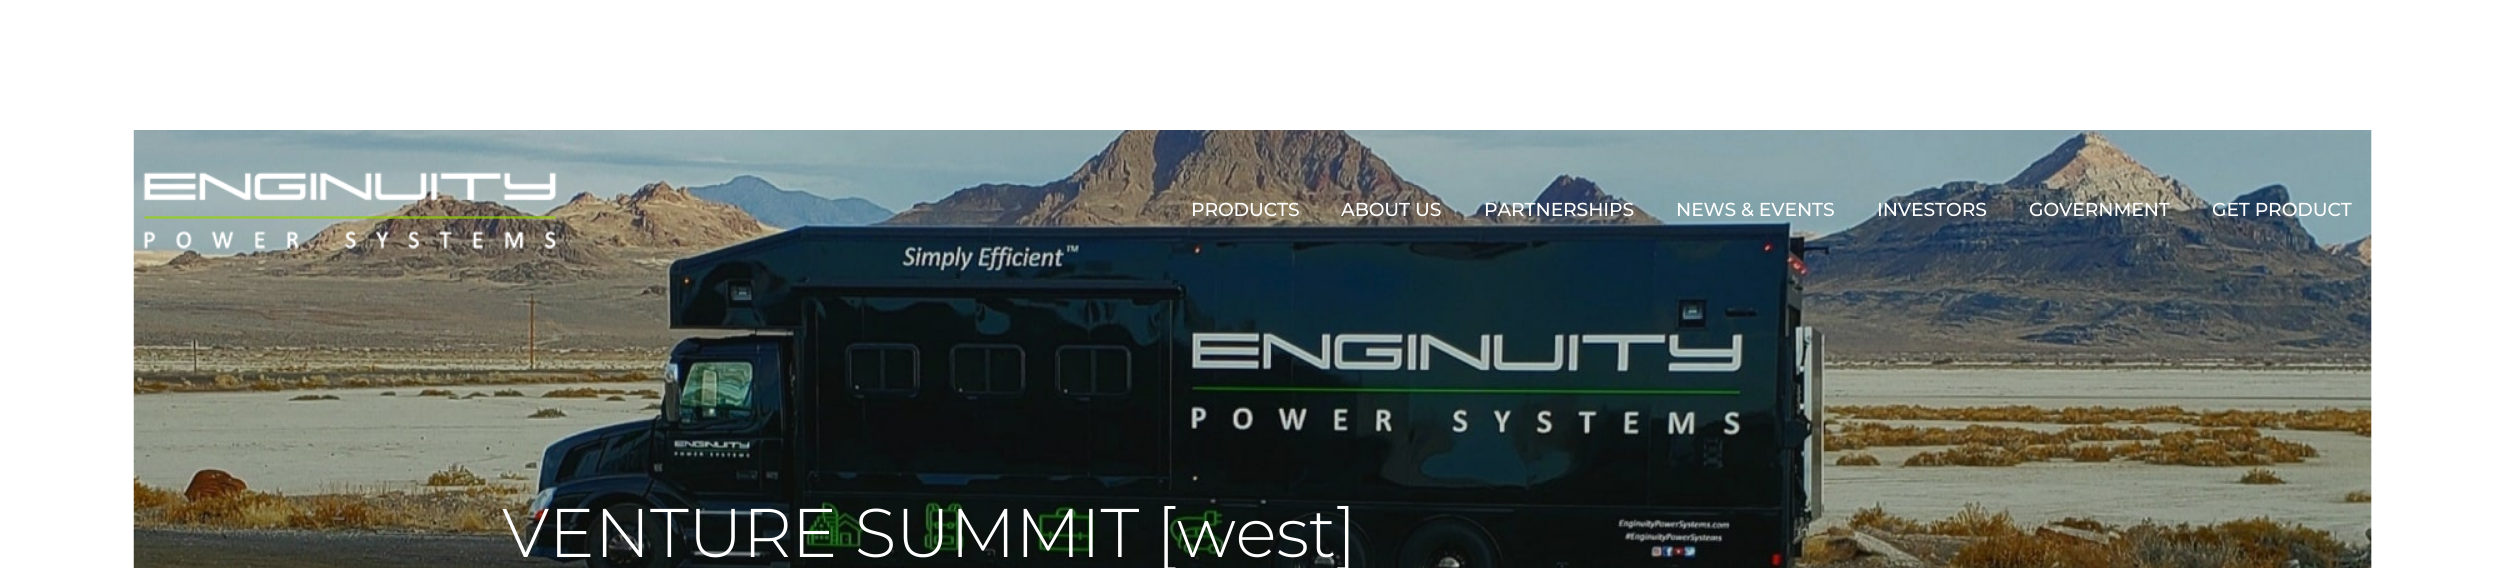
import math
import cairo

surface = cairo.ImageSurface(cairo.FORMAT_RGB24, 2503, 568)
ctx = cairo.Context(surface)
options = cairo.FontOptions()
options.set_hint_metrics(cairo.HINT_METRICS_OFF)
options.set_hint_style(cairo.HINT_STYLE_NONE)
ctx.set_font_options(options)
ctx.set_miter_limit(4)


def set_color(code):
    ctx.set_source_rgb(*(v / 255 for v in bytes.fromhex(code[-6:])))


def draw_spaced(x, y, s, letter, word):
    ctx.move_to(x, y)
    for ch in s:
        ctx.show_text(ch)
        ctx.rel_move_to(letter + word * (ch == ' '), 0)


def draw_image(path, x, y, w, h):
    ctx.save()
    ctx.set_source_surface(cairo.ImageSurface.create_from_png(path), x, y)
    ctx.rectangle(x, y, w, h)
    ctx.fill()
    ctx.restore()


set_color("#ffffff")
ctx.paint()
draw_image("assets/img2.png", 133, 130, 2239, 438)
draw_image("assets/img1.png", 143, 172, 414, 77)
ctx.select_font_face("Montserrat Medium")
ctx.set_font_size(18.75)
set_color("#ffffff")
draw_spaced(1191, 216, "PRODUCTS", -0.1, 0)
draw_spaced(1341, 216, "ABOUT US", -0.1, 0)
draw_spaced(1484, 216, "PARTNERSHIPS", -0.1, 0)
draw_spaced(1676, 216, "NEWS & EVENTS", -0.1, 0)
draw_spaced(1877, 216, "INVESTORS", -0.1, 0)
draw_spaced(2029, 216, "GOVERNMENT", -0.1, 0)
draw_spaced(2212, 216, "GET PRODUCT", -0.1, 0)
ctx.select_font_face("Montserrat Light")
ctx.set_font_size(68.75)
draw_spaced(502, 557, "VENTURE SUMMIT [west]", -0.4, 0)
surface.write_to_png("output.png")
